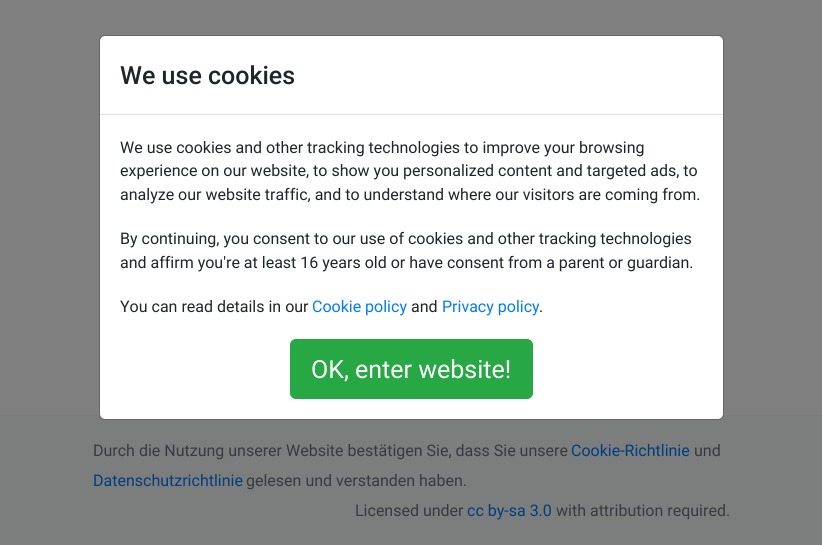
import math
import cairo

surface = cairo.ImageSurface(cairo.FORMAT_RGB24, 822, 545)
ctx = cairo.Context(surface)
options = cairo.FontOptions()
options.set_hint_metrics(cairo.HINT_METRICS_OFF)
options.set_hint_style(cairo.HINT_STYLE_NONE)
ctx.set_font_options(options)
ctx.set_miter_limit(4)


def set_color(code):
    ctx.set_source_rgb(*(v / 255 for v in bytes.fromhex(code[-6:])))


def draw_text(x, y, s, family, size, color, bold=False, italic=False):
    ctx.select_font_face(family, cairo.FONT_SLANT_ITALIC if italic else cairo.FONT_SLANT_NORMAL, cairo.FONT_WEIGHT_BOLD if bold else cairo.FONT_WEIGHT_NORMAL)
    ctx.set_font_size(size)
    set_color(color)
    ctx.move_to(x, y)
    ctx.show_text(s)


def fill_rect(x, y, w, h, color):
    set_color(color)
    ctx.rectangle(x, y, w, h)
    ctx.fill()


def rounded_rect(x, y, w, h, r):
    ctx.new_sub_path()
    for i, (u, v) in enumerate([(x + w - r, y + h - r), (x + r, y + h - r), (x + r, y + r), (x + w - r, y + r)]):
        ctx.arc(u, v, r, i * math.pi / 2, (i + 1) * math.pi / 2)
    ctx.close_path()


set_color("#808080")
ctx.paint()
fill_rect(0, 415, 822, 130, "#7c7d7d")
set_color("#ffffff")
rounded_rect(100, 36, 623, 383, 5)
ctx.fill()
rounded_rect(99.5, 35.5, 624, 384, 5.5)
ctx.set_source_rgba(0, 0, 0, 0.2)
ctx.set_line_width(1)
ctx.stroke()
fill_rect(100, 114, 623, 1, "#dee2e6")
draw_text(120, 84, "We use cookies", "Roboto Medium", 25, "#212529")
draw_text(120, 153, "We use cookies and other tracking technologies to improve your browsing", "Roboto", 16, "#212529")
draw_text(120, 176, "experience on our website, to show you personalized content and targeted ads, to", "Roboto", 16, "#212529")
draw_text(120, 200, "analyze our website traffic, and to understand where our visitors are coming from.", "Roboto", 16, "#212529")
draw_text(120, 244, "By continuing, you consent to our use of cookies and other tracking technologies", "Roboto", 16, "#212529")
draw_text(120, 268, "and affirm you're at least 16 years old or have consent from a parent or guardian.", "Roboto", 16, "#212529")
draw_text(120, 312, "You can read details in our", "Roboto", 16, "#212529")
draw_text(312, 312, "Cookie policy", "Roboto", 16, "#007bff")
draw_text(411, 312, "and", "Roboto", 16, "#212529")
draw_text(442, 312, "Privacy policy", "Roboto", 16, "#007bff")
draw_text(539, 312, ".", "Roboto", 16, "#212529")
set_color("#28a745")
rounded_rect(290.5, 339.5, 242, 59, 5.5)
ctx.fill_preserve()
ctx.stroke()
draw_text(311, 378, "OK, enter website!", "Roboto", 25, "#ffffff")
draw_text(93, 456, "Durch die Nutzung unserer Website bestätigen Sie, dass Sie unsere", "Roboto", 16, "#363b3f")
draw_text(571, 456, "Cookie-Richtlinie", "Roboto", 16, "#003e80")
draw_text(694, 456, "und", "Roboto", 16, "#363b3f")
draw_text(93, 486, "Datenschutzrichtlinie", "Roboto", 16, "#003e80")
draw_text(246, 486, "gelesen und verstanden haben.", "Roboto", 16, "#363b3f")
draw_text(355, 516, "Licensed under", "Roboto", 16, "#363b3f")
draw_text(467, 516, "cc by-sa 3.0", "Roboto", 16, "#003e80")
draw_text(556, 516, "with attribution required.", "Roboto", 16, "#363b3f")
surface.write_to_png("output.png")
